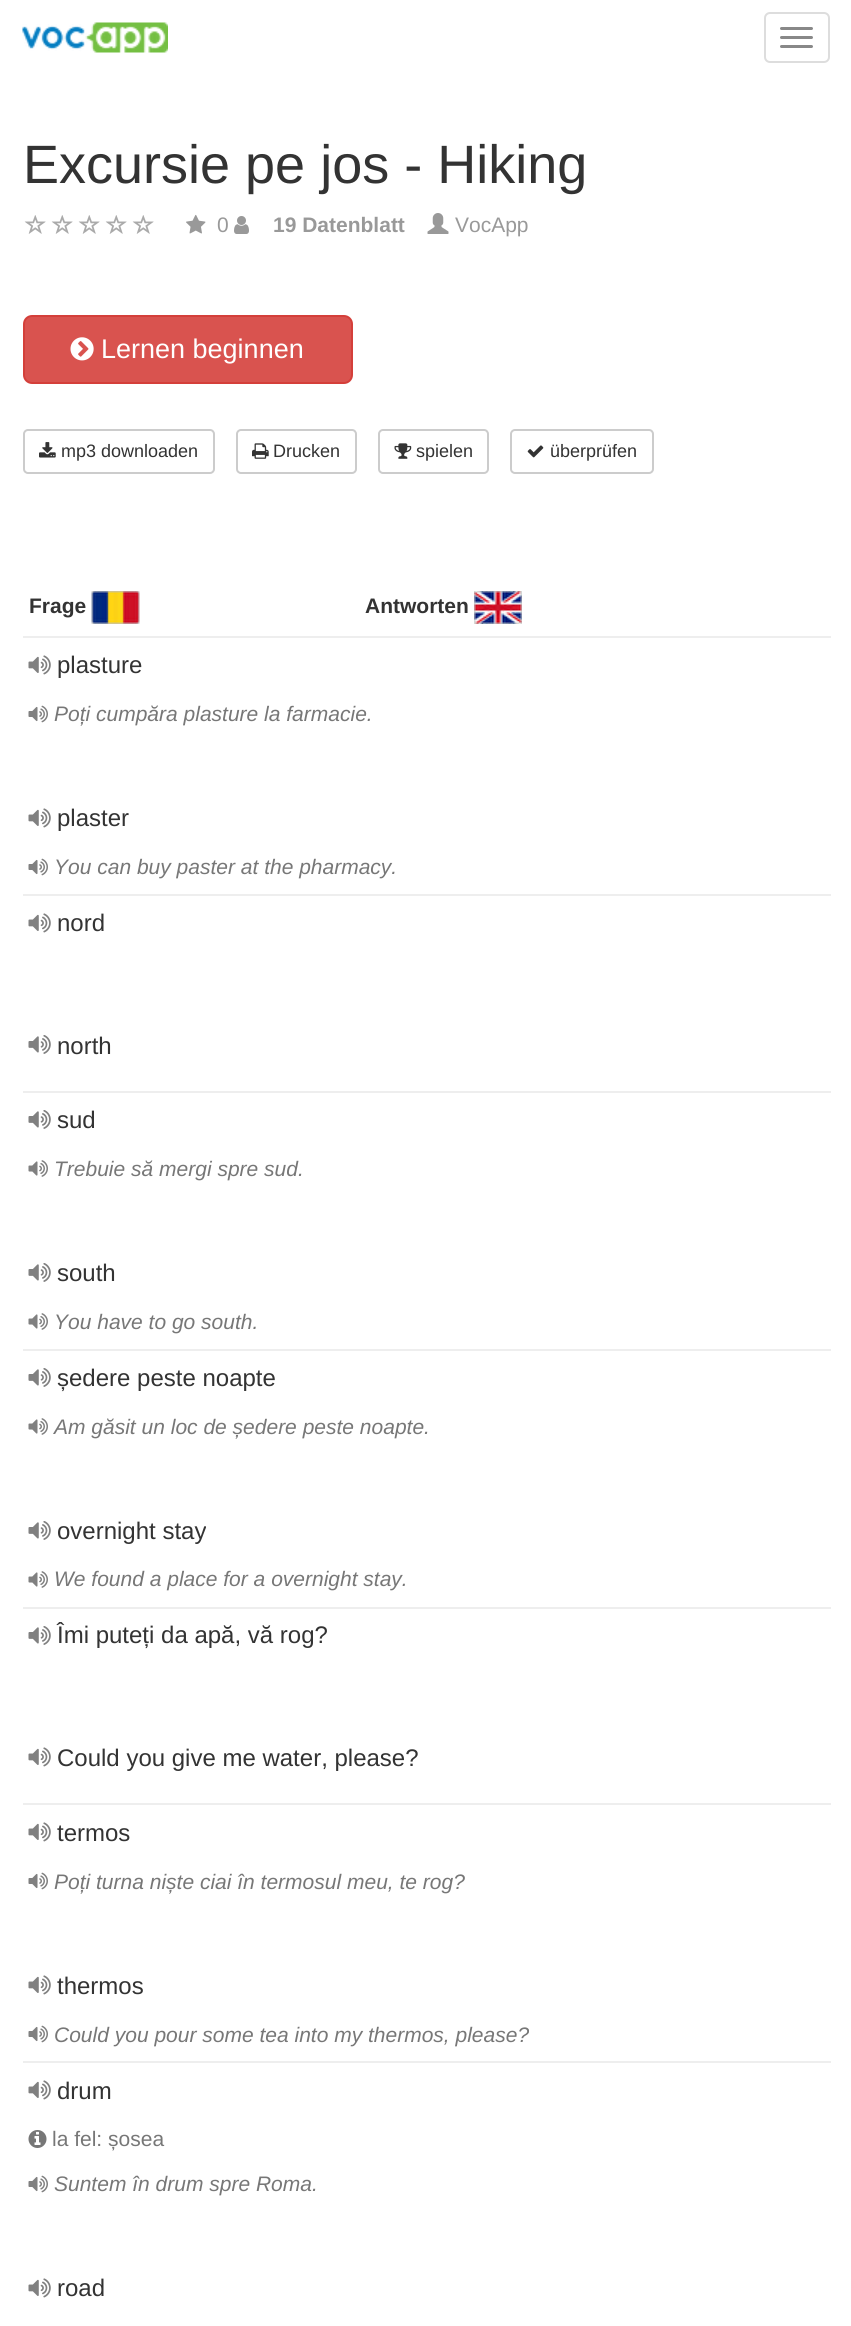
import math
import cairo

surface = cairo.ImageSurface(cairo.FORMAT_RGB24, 851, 2326)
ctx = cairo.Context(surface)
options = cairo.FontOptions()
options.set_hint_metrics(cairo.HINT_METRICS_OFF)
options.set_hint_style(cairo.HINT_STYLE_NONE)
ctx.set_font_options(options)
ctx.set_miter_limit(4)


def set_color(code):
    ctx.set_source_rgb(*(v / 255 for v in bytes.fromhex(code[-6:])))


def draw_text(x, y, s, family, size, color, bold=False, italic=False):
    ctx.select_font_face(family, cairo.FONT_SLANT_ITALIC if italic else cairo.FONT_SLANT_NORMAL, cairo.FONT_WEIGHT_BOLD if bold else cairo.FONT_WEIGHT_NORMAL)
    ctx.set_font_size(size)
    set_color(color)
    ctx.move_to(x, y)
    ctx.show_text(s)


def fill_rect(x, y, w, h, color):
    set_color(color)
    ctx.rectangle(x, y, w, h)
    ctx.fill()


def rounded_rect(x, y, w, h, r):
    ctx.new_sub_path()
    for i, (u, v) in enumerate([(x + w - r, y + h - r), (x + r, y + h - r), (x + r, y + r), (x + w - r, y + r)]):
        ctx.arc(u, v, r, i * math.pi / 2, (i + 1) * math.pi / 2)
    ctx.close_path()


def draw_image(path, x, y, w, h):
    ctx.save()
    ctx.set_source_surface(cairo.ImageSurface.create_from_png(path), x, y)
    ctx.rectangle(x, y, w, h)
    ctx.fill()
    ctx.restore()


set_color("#ffffff")
ctx.paint()
draw_image("assets/img1.png", 22, 22, 146, 31)
rounded_rect(765, 13, 64, 49, 5)
set_color("#dddddd")
ctx.stroke()
set_color("#888888")
rounded_rect(780, 27, 33, 3, 1.5)
ctx.fill()
rounded_rect(780, 36, 33, 3, 1.5)
ctx.fill()
rounded_rect(780, 45, 33, 3, 1.5)
ctx.fill()
draw_text(23, 183, "Excursie pe jos - Hiking", "Liberation Sans", 54, "#333333")
draw_image("assets/img2.png", 24, 215, 22, 19)
draw_image("assets/img2.png", 51, 215, 22, 19)
draw_image("assets/img2.png", 78, 215, 22, 19)
draw_image("assets/img2.png", 105, 215, 22, 19)
draw_image("assets/img2.png", 132, 215, 22, 19)
draw_image("assets/img3.png", 186, 214, 20, 20)
draw_text(217, 232, "0", "Liberation Sans", 21, "#999999")
draw_image("assets/img4.png", 234, 216, 15, 18)
draw_text(273, 232, "19 Datenblatt", "Liberation Sans", 21, "#999999", bold=True)
draw_image("assets/img5.png", 427, 213, 22, 21)
draw_text(455, 232, "VocApp", "Liberation Sans", 21, "#999999")
set_color("#d9534f")
rounded_rect(24, 316, 328, 67, 8)
ctx.fill_preserve()
set_color("#d43f3a")
ctx.stroke()
draw_image("assets/img6.png", 70, 337, 24, 24)
draw_text(101, 358, "Lernen beginnen", "Liberation Sans", 27, "#ffffff")
rounded_rect(24, 430, 190, 43, 4)
set_color("#cccccc")
ctx.stroke()
draw_image("assets/img7.png", 39, 442, 17, 16)
draw_text(61, 457, "mp3 downloaden", "Liberation Sans", 18, "#333333")
rounded_rect(237, 430, 119, 43, 4)
set_color("#cccccc")
ctx.stroke()
draw_image("assets/img8.png", 252, 443, 17, 16)
draw_text(273, 457, "Drucken", "Liberation Sans", 18, "#333333")
rounded_rect(379, 430, 109, 43, 4)
set_color("#cccccc")
ctx.stroke()
draw_image("assets/img9.png", 394, 443, 18, 16)
draw_text(416, 457, "spielen", "Liberation Sans", 18, "#333333")
rounded_rect(511, 430, 142, 43, 4)
set_color("#cccccc")
ctx.stroke()
draw_image("assets/img10.png", 527, 445, 17, 13)
draw_text(550, 457, "überprüfen", "Liberation Sans", 18, "#333333")
fill_rect(23, 636, 808, 2, "#eeeeee")
draw_text(29, 613, "Frage", "Liberation Sans", 21, "#333333", bold=True)
draw_image("assets/img11.png", 91, 591, 49, 33)
draw_text(365, 613, "Antworten", "Liberation Sans", 21, "#333333", bold=True)
draw_image("assets/img12.png", 474, 591, 48, 33)
fill_rect(23, 894, 808, 2, "#eeeeee")
draw_image("assets/img13.png", 28, 655, 23, 20)
draw_text(57, 673, "plasture", "Liberation Sans", 24, "#333333")
draw_image("assets/img14.png", 28, 705, 20, 18)
draw_text(54, 721, "Poți cumpăra plasture la farmacie.", "Liberation Sans", 21, "#777777", italic=True)
draw_image("assets/img13.png", 28, 808, 23, 20)
draw_text(57, 826, "plaster", "Liberation Sans", 24, "#333333")
draw_image("assets/img14.png", 28, 858, 20, 18)
draw_text(54, 874, "You can buy paster at the pharmacy.", "Liberation Sans", 21, "#777777", italic=True)
fill_rect(23, 1091, 808, 2, "#eeeeee")
draw_image("assets/img13.png", 28, 913, 23, 20)
draw_text(57, 931, "nord", "Liberation Sans", 24, "#333333")
draw_image("assets/img15.png", 28, 1035, 23, 19)
draw_text(57, 1054, "north", "Liberation Sans", 24, "#333333")
fill_rect(23, 1349, 808, 2, "#eeeeee")
draw_image("assets/img15.png", 28, 1110, 23, 19)
draw_text(57, 1128, "sud", "Liberation Sans", 24, "#333333")
draw_image("assets/img16.png", 28, 1160, 20, 17)
draw_text(54, 1176, "Trebuie să mergi spre sud.", "Liberation Sans", 21, "#777777", italic=True)
draw_image("assets/img15.png", 28, 1263, 23, 19)
draw_text(57, 1281, "south", "Liberation Sans", 24, "#333333")
draw_image("assets/img16.png", 28, 1313, 20, 17)
draw_text(54, 1329, "You have to go south.", "Liberation Sans", 21, "#777777", italic=True)
fill_rect(23, 1607, 808, 2, "#eeeeee")
draw_image("assets/img15.png", 28, 1368, 23, 19)
draw_text(57, 1386, "ședere peste noapte", "Liberation Sans", 24, "#333333")
draw_image("assets/img16.png", 28, 1418, 20, 17)
draw_text(54, 1434, "Am găsit un loc de ședere peste noapte.", "Liberation Sans", 21, "#777777", italic=True)
draw_image("assets/img15.png", 28, 1521, 23, 19)
draw_text(57, 1539, "overnight stay", "Liberation Sans", 24, "#333333")
draw_image("assets/img16.png", 28, 1571, 20, 17)
draw_text(54, 1586, "We found a place for a overnight stay.", "Liberation Sans", 21, "#777777", italic=True)
fill_rect(23, 1803, 808, 2, "#eeeeee")
draw_image("assets/img15.png", 28, 1626, 23, 19)
draw_text(57, 1643, "Îmi puteți da apă, vă rog?", "Liberation Sans", 24, "#333333")
draw_image("assets/img13.png", 28, 1747, 23, 20)
draw_text(57, 1766, "Could you give me water, please?", "Liberation Sans", 24, "#333333")
fill_rect(23, 2061, 808, 2, "#eeeeee")
draw_image("assets/img13.png", 28, 1822, 23, 20)
draw_text(57, 1841, "termos", "Liberation Sans", 24, "#333333")
draw_image("assets/img14.png", 28, 1872, 20, 18)
draw_text(54, 1889, "Poți turna niște ciai în termosul meu, te rog?", "Liberation Sans", 21, "#777777", italic=True)
draw_image("assets/img13.png", 28, 1975, 23, 20)
draw_text(57, 1994, "thermos", "Liberation Sans", 24, "#333333")
draw_image("assets/img14.png", 28, 2025, 20, 18)
draw_text(54, 2042, "Could you pour some tea into my thermos, please?", "Liberation Sans", 21, "#777777", italic=True)
draw_image("assets/img13.png", 28, 2080, 23, 20)
draw_text(57, 2099, "drum", "Liberation Sans", 24, "#333333")
draw_image("assets/img17.png", 28, 2130, 19, 18)
draw_text(52, 2146, "la fel: șosea", "Liberation Sans", 21, "#777777")
draw_image("assets/img14.png", 28, 2175, 20, 18)
draw_text(54, 2191, "Suntem în drum spre Roma.", "Liberation Sans", 21, "#777777", italic=True)
draw_image("assets/img13.png", 28, 2278, 23, 20)
draw_text(57, 2296, "road", "Liberation Sans", 24, "#333333")
surface.write_to_png("output.png")
